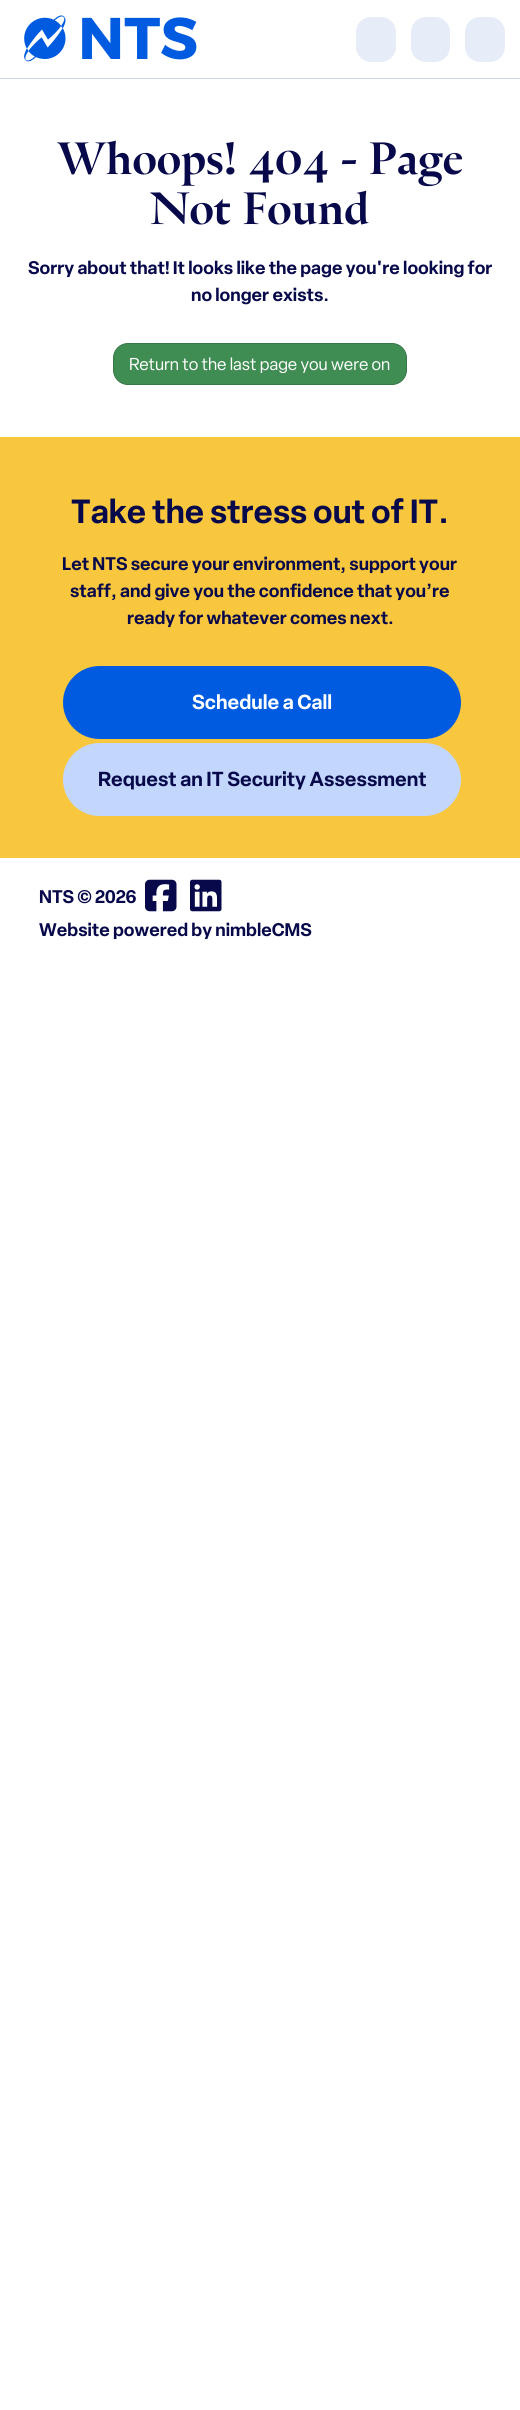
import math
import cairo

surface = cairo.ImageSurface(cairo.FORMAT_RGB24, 520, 2410)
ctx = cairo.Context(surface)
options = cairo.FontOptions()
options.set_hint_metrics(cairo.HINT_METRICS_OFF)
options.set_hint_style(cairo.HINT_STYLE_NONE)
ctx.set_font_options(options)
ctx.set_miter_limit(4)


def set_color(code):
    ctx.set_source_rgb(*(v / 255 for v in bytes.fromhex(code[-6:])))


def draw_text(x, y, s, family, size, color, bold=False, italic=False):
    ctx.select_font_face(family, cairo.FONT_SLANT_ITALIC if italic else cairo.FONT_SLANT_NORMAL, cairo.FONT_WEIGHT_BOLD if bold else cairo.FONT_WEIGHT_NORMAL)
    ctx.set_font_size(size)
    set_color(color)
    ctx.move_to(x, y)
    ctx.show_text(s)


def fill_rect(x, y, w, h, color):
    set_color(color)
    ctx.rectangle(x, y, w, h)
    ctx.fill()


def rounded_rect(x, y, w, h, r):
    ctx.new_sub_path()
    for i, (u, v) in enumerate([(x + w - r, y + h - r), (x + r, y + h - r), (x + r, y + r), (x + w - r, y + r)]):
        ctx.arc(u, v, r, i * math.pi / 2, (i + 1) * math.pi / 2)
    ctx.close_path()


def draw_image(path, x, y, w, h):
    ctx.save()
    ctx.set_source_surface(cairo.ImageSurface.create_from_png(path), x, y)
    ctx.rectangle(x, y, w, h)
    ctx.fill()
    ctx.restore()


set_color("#ffffff")
ctx.paint()
fill_rect(0, 78, 520, 1, "#ccd8ea")
draw_image("assets/img1.png", 24, 15, 173, 47)
set_color("#e6edf8")
rounded_rect(356, 17, 40, 45, 15)
ctx.fill()
rounded_rect(411, 17, 39, 45, 15)
ctx.fill()
rounded_rect(465, 17, 40, 45, 15)
ctx.fill()
draw_text(57, 174, "Whoops! 404 - Page", "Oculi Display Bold", 45, "#07094a", bold=True)
draw_text(150, 224, "Not Found", "Oculi Display Bold", 45, "#07094a", bold=True)
draw_text(28, 274, "Sorry about that! It looks like the page you're looking for", "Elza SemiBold", 18, "#07094a")
draw_text(191, 301, "no longer exists.", "Elza SemiBold", 18, "#07094a")
set_color("#408d54")
rounded_rect(113.5, 343.5, 293, 41, 14.5)
ctx.fill_preserve()
set_color("#357847")
ctx.set_line_width(1)
ctx.stroke()
draw_text(129, 370, "Return to the last page you were on", "Elza", 17, "#ffffff")
fill_rect(0, 437, 520, 421, "#f9c73d")
draw_text(71, 523, "Take the stress out of IT.", "Elza SemiBold", 33, "#07094a")
draw_text(62, 570, "Let NTS secure your environment, support your", "Elza SemiBold", 18, "#07094a")
draw_text(70, 597, "staff, and give you the confidence that you’re", "Elza SemiBold", 18, "#07094a")
draw_text(127, 624, "ready for whatever comes next.", "Elza SemiBold", 18, "#07094a")
set_color("#005be0")
rounded_rect(63, 666, 398, 73, 36.5)
ctx.fill()
draw_text(192, 709, "Schedule a Call", "Elza SemiBold", 20, "#ffffff")
set_color("#c3d7fd")
rounded_rect(63, 743, 398, 73, 36.5)
ctx.fill()
draw_text(98, 786, "Request an IT Security Assessment", "Elza SemiBold", 20, "#07094a")
draw_text(39, 903, "NTS © 2026", "Elza SemiBold", 18, "#07094a")
draw_image("assets/img2.png", 145, 879, 32, 33)
draw_image("assets/img3.png", 190, 879, 32, 33)
draw_text(39, 936, "Website powered by nimbleCMS", "Elza SemiBold", 18, "#07094a")
surface.write_to_png("output.png")
